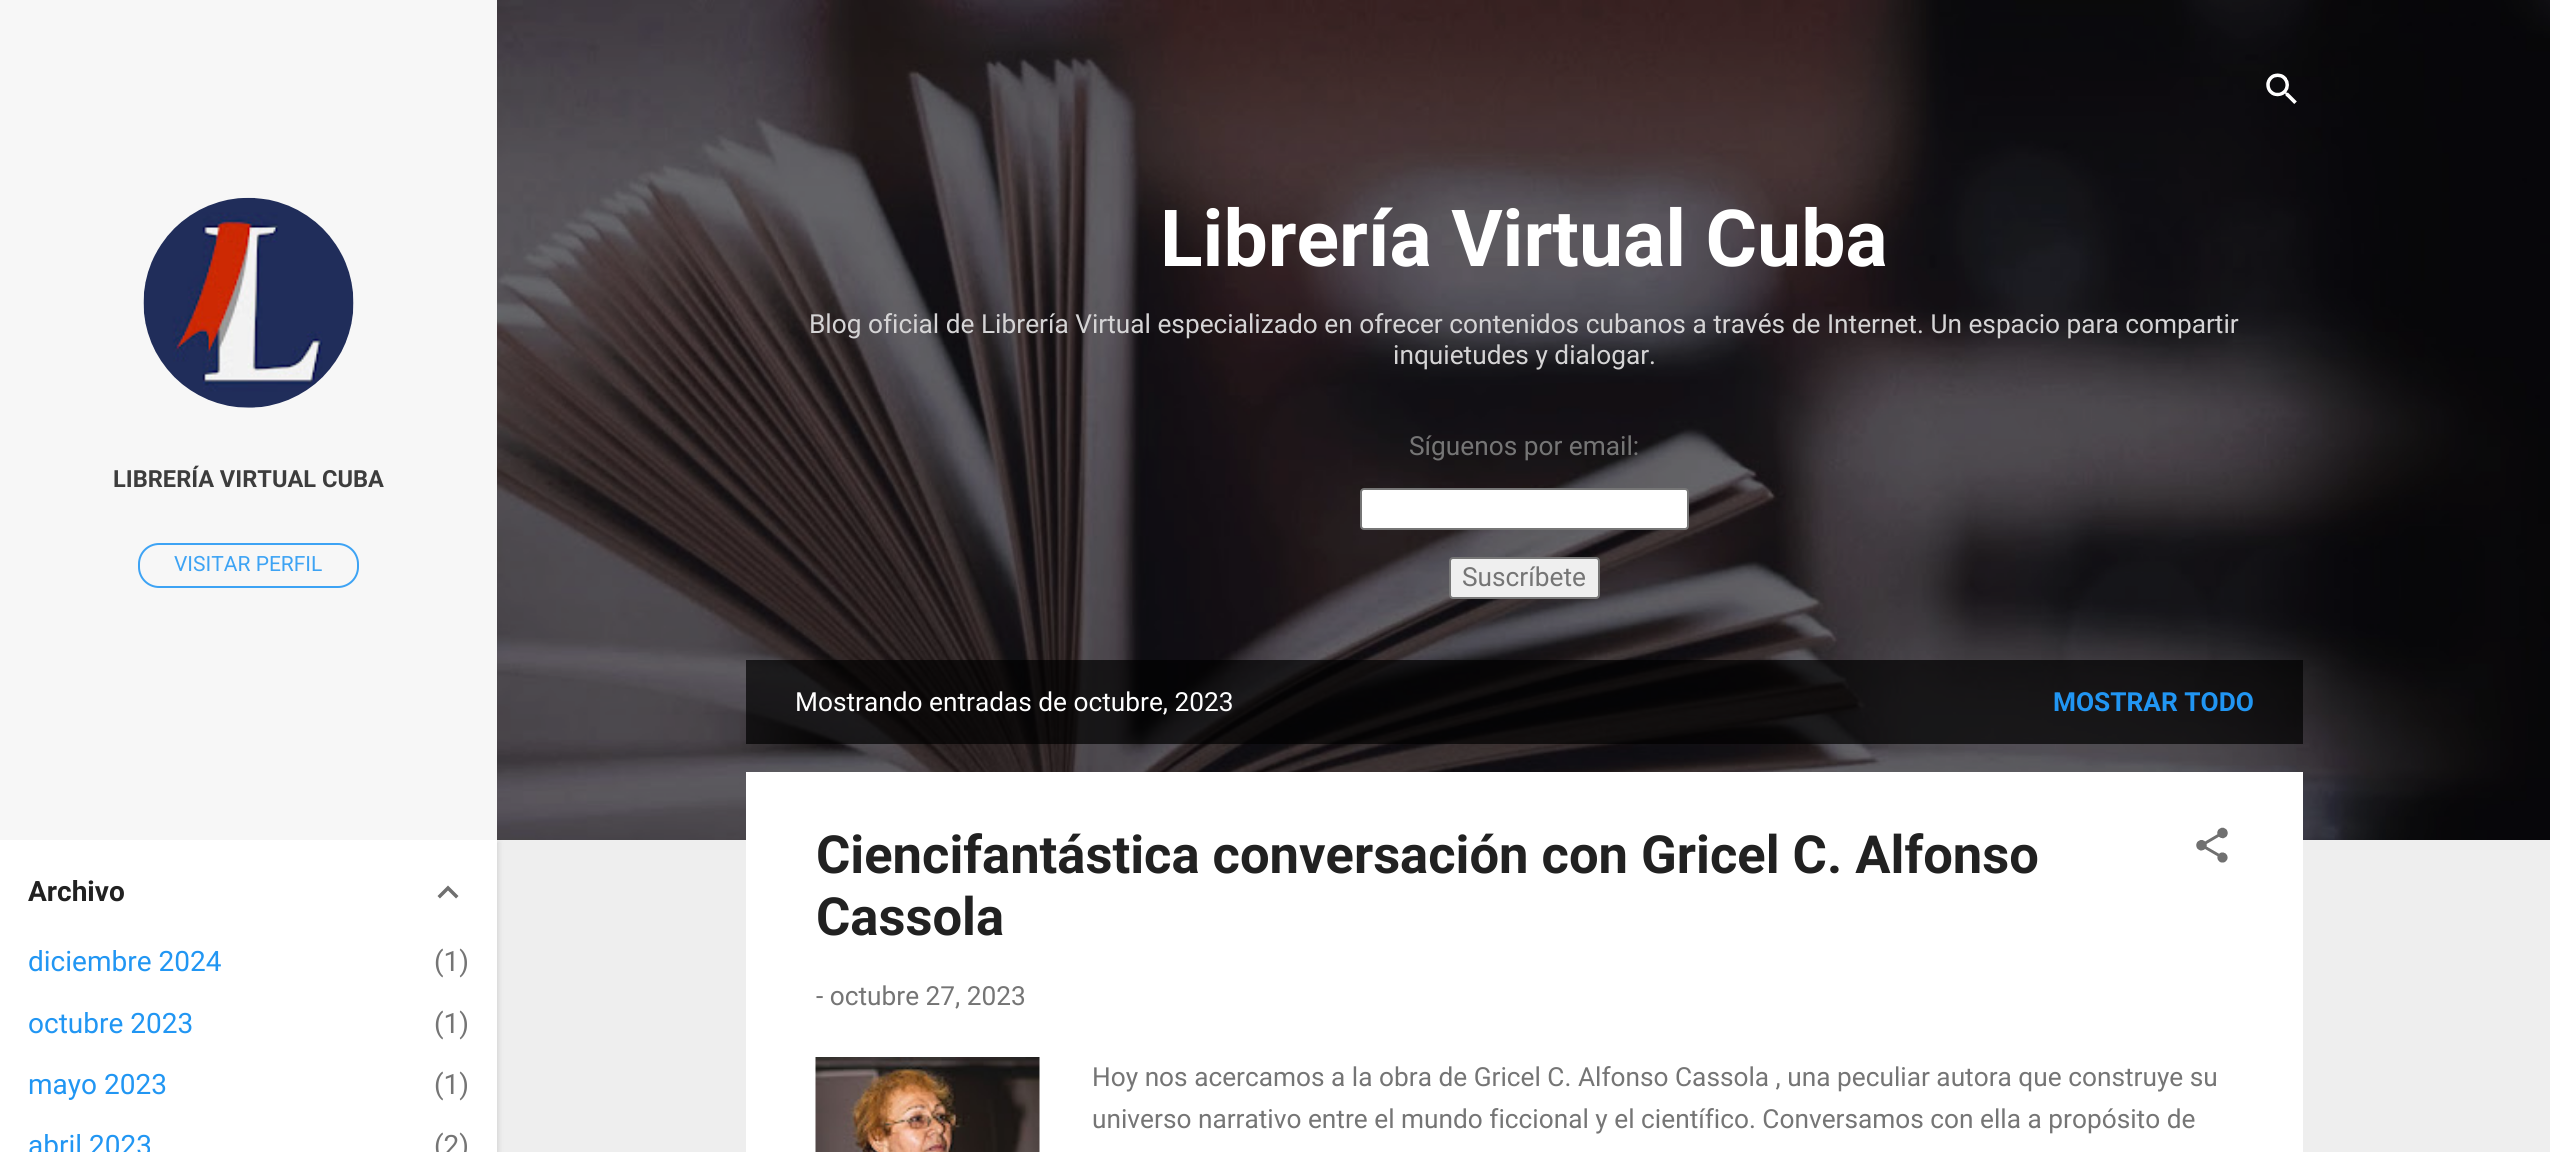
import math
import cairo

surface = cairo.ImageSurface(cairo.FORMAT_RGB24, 2550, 1152)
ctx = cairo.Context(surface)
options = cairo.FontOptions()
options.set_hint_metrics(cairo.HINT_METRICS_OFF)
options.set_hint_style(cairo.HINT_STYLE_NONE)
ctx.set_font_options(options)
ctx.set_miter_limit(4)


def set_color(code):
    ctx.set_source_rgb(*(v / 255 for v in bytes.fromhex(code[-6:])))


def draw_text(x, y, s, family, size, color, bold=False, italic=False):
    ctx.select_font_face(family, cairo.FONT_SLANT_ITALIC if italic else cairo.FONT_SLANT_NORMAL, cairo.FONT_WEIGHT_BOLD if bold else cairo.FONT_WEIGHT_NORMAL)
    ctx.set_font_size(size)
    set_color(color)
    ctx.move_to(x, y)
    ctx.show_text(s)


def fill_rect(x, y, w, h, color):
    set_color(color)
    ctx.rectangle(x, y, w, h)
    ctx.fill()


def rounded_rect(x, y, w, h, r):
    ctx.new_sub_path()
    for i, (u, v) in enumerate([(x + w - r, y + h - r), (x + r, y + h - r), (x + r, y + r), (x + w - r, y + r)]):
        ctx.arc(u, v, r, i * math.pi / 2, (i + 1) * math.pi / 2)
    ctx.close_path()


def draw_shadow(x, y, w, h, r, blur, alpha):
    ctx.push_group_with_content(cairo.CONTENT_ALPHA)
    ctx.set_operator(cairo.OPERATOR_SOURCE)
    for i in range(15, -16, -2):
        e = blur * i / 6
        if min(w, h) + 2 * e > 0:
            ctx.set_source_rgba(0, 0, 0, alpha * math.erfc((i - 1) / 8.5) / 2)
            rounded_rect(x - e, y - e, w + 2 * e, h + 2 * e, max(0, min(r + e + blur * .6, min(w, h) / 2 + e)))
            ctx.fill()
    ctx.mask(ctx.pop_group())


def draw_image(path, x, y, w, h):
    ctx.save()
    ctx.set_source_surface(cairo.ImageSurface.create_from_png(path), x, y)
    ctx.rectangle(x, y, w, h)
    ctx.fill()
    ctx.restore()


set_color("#eeeeee")
ctx.paint()
draw_image("assets/img3.png", 497, 0, 2053, 840)
set_color("#000000")
draw_shadow(2, 842, 497, 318, 0, 2.5, 0.1)
fill_rect(0, 840, 497, 312, "#ffffff")
fill_rect(0, 0, 497, 840, "#f7f7f7")
draw_image("assets/img1.png", 143, 197, 211, 211)
draw_text(113, 487, "LIBRERÍA VIRTUAL CUBA", "Roboto", 23.6, "#3d3d3d", bold=True)
rounded_rect(139, 544, 219, 43, 20)
set_color("#3da3f4")
ctx.stroke()
draw_text(174, 571, "VISITAR PERFIL", "Roboto", 21, "#3da3f4")
draw_text(28, 901, "Archivo", "Roboto", 28, "#212121", bold=True)
draw_image("assets/img2.png", 437, 885, 22, 14)
draw_text(28, 971, "diciembre 2024", "Roboto", 28, "#2196f3")
draw_text(434, 971, "(1)", "Roboto", 28, "#757575")
draw_text(28, 1033, "octubre 2023", "Roboto", 28, "#2196f3")
draw_text(434, 1033, "(1)", "Roboto", 28, "#757575")
draw_text(28, 1094, "mayo 2023", "Roboto", 28, "#2196f3")
draw_text(434, 1094, "(1)", "Roboto", 28, "#757575")
draw_text(28, 1155, "abril 2023", "Roboto", 28, "#2196f3")
draw_text(434, 1155, "(2)", "Roboto", 28, "#757575")
draw_image("assets/img4.png", 2266, 73, 31, 31)
draw_text(1160, 266, "Librería Virtual Cuba", "Roboto", 78.75, "#ffffff", bold=True)
draw_text(809, 333, "Blog oficial de Librería Virtual especializado en ofrecer contenidos cubanos a través de Internet. Un espacio para compartir", "Roboto", 26.25, "#d5d4d5")
draw_text(1393, 364, "inquietudes y dialogar.", "Roboto", 26.25, "#d5d4d5")
draw_text(1409, 455, "Síguenos por email:", "Roboto", 26.25, "#757575")
set_color("#ffffff")
rounded_rect(1361, 489, 327, 40, 3)
ctx.fill_preserve()
set_color("#767676")
ctx.stroke()
set_color("#efefef")
rounded_rect(1450, 558, 149, 40, 3)
ctx.fill_preserve()
set_color("#767676")
ctx.stroke()
draw_text(1462, 586, "Suscríbete", "Roboto", 26.25, "#757575")
ctx.set_source_rgba(0, 0, 0, 0.7)
ctx.rectangle(746, 660, 1557, 84)
ctx.fill()
draw_text(795, 711, "Mostrando entradas de octubre, 2023", "Roboto", 26.25, "#ffffff")
draw_text(2053, 711, "MOSTRAR TODO", "Roboto", 26.25, "#2196f3", bold=True)
fill_rect(746, 772, 1557, 380, "#ffffff")
draw_text(816, 873, "Ciencifantástica conversación con Gricel C. Alfonso", "Roboto", 52.5, "#212121", bold=True)
draw_text(816, 935, "Cassola", "Roboto", 52.5, "#212121", bold=True)
draw_image("assets/img5.png", 2196, 827, 32, 36)
draw_text(816, 1005, "- octubre 27, 2023", "Roboto", 26.25, "#757575")
draw_image("assets/img6.png", 815, 1057, 225, 95)
draw_text(1092, 1086, "Hoy nos acercamos a la obra de Gricel C. Alfonso Cassola , una peculiar autora que construye su", "Roboto", 26.25, "#757575")
draw_text(1092, 1128, "universo narrativo entre el mundo ficcional y el científico. Conversamos con ella a propósito de", "Roboto", 26.25, "#757575")
surface.write_to_png("output.png")
